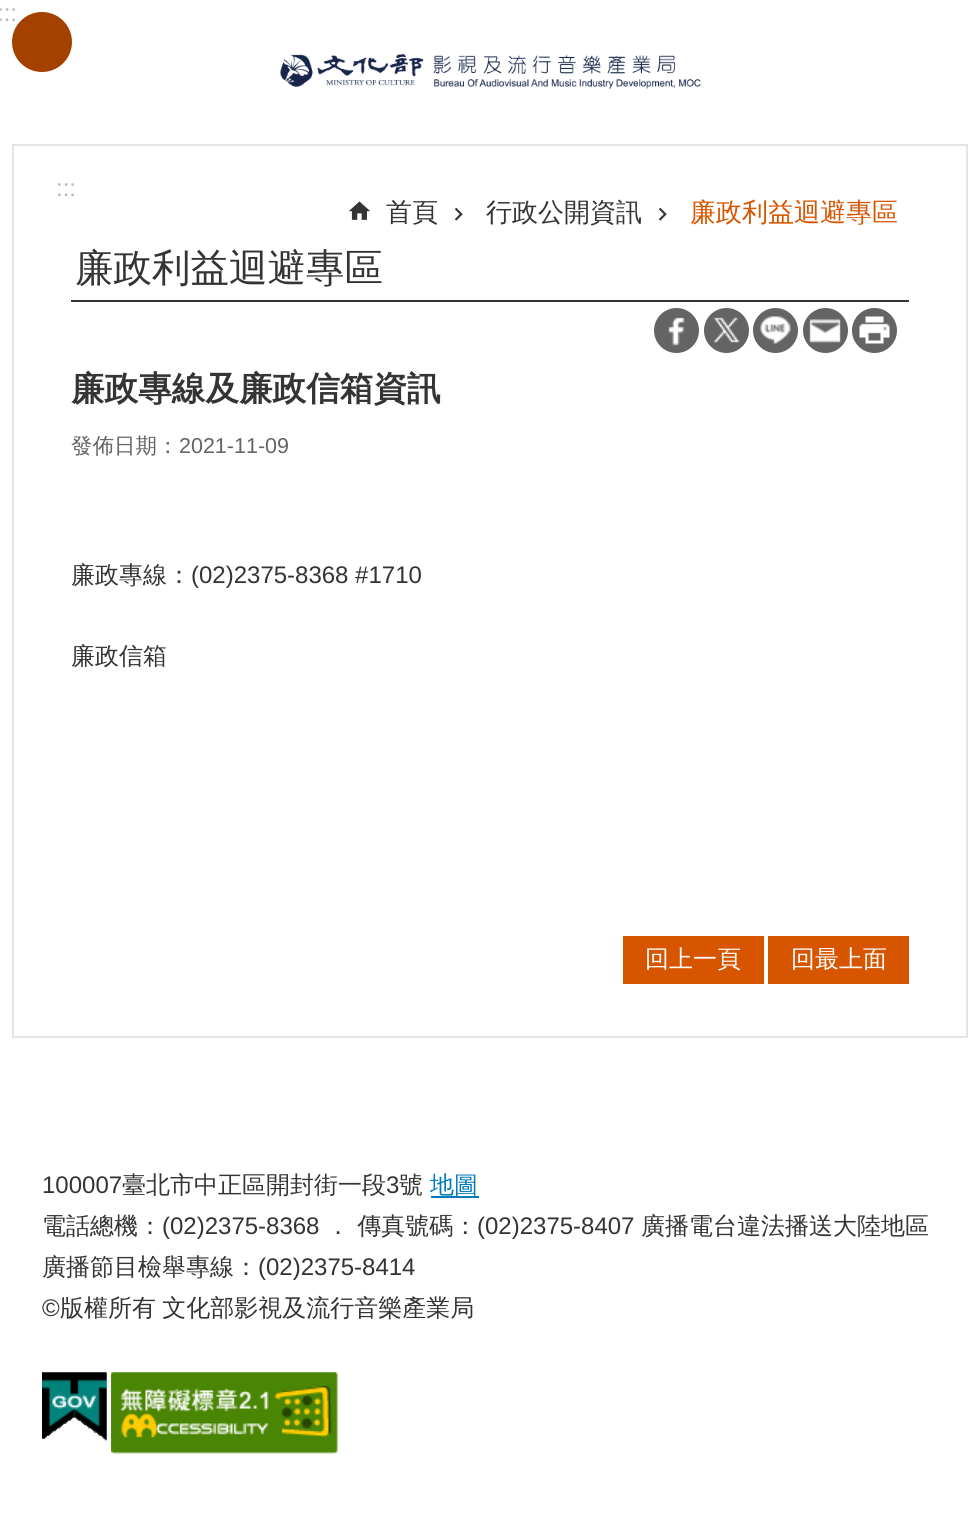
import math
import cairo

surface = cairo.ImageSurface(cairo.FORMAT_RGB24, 979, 1514)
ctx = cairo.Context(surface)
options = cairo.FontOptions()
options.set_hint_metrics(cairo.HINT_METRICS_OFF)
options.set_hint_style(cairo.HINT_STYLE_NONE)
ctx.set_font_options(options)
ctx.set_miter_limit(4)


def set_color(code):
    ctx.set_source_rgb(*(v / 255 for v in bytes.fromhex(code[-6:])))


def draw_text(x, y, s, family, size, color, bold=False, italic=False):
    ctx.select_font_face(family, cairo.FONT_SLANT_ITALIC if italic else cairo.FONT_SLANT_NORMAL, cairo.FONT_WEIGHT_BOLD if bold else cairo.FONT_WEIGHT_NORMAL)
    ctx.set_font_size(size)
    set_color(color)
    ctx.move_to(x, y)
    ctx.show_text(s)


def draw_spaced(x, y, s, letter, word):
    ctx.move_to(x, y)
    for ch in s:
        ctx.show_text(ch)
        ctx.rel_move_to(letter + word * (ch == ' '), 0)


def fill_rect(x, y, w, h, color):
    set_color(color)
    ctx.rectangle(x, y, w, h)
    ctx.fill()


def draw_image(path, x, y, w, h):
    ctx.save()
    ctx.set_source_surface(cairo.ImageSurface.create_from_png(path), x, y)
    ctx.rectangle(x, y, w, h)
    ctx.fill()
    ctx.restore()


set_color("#ffffff")
ctx.paint()
draw_text(-3, 21, ":::", "Liberation Sans", 24, "#b6b6b6")
draw_image("assets/img1.png", 280, 54, 421, 35)
set_color("#a54100")
ctx.arc(42, 42, 30, 0, 2 * math.pi)
ctx.fill()
ctx.rectangle(13, 145, 954, 892)
set_color("#e4e4e4")
ctx.stroke()
draw_text(56, 196, ":::", "Liberation Sans", 24, "#b6b6b6")
draw_image("assets/img2.png", 348, 201, 23, 19)
draw_text(386, 221, "首頁", "WenQuanYi Zen Hei Medium", 26, "#343434")
draw_image("assets/img3.png", 454, 207, 9, 14)
draw_text(486, 221, "行政公開資訊", "WenQuanYi Zen Hei Medium", 26, "#343434")
draw_image("assets/img3.png", 658, 207, 9, 14)
draw_text(690, 221, "廉政利益迴避專區", "WenQuanYi Zen Hei Medium", 26, "#d85500")
fill_rect(71, 300, 838, 2, "#343434")
draw_text(75, 281, "廉政利益迴避專區", "WenQuanYi Zen Hei Medium", 38.5, "#343434")
set_color("#646464")
ctx.new_path()
ctx.arc(676.5, 330.5, 22.5, 0, 2 * math.pi)
ctx.fill()
draw_image("assets/img4.png", 668, 317, 17, 29)
ctx.arc(726.5, 330.5, 22.5, 0, 2 * math.pi)
ctx.fill()
draw_image("assets/img5.png", 713, 317, 27, 26)
ctx.arc(775.5, 330.5, 22.5, 0, 2 * math.pi)
ctx.fill()
draw_image("assets/img6.png", 760, 316, 31, 28)
ctx.arc(825.5, 330.5, 22.5, 0, 2 * math.pi)
ctx.fill()
draw_image("assets/img7.png", 809, 319, 32, 24)
ctx.arc(874.5, 330.5, 22.5, 0, 2 * math.pi)
ctx.fill()
draw_image("assets/img8.png", 859, 316, 31, 28)
draw_text(71, 400, "廉政專線及廉政信箱資訊", "WenQuanYi Zen Hei", 33.6, "#343434", bold=True)
draw_text(71, 453, "發佈日期：", "WenQuanYi Zen Hei Medium", 21.5, "#646464")
draw_text(179, 453, "2021-11-09", "Liberation Sans", 21.5, "#646464")
draw_text(71, 583, "廉政專線：", "WenQuanYi Zen Hei Medium", 24, "#343434")
draw_text(191, 583, "(02)2375-8368 #1710", "Liberation Sans", 24, "#343434")
draw_text(71, 664, "廉政信箱", "WenQuanYi Zen Hei Medium", 24, "#343434")
fill_rect(623, 936, 141, 48, "#d85500")
draw_text(645, 967, "回上一頁", "WenQuanYi Zen Hei Medium", 24, "#ffffff")
fill_rect(768, 936, 141, 48, "#d85500")
draw_text(791, 967, "回最上面", "WenQuanYi Zen Hei Medium", 24, "#ffffff")
draw_text(42, 1193, "100007", "Liberation Sans", 24, "#343434")
draw_text(122, 1193, "臺北市中正區開封街一段", "WenQuanYi Zen Hei Medium", 24, "#343434")
draw_text(386, 1193, "3", "Liberation Sans", 24, "#343434")
draw_text(399, 1193, "號", "WenQuanYi Zen Hei Medium", 24, "#343434")
draw_text(430, 1193, "地圖", "WenQuanYi Zen Hei Medium", 24, "#007cba")
fill_rect(431, 1196, 48, 2, "#007cba")
draw_text(42, 1234, "電話總機：", "WenQuanYi Zen Hei Medium", 24, "#343434")
draw_text(162, 1234, "(02)2375-8368", "Liberation Sans", 24, "#343434")
draw_text(326, 1234, "． 傳真號碼：", "WenQuanYi Zen Hei Medium", 24, "#343434")
draw_text(477, 1234, "(02)2375-8407", "Liberation Sans", 24, "#343434")
draw_text(641, 1234, "廣播電台違法播送大陸地區", "WenQuanYi Zen Hei Medium", 24, "#343434")
draw_text(42, 1275, "廣播節目檢舉專線：", "WenQuanYi Zen Hei Medium", 24, "#343434")
draw_text(258, 1275, "(02)2375-8414", "Liberation Sans", 24, "#343434")
draw_text(42, 1316, "©", "Liberation Sans", 24, "#343434")
ctx.select_font_face("WenQuanYi Zen Hei Medium")
draw_spaced(60, 1316, "版權所有 文化部影視及流行音樂產業局", 0, -1)
draw_image("assets/img9.png", 42, 1372, 65, 69)
draw_image("assets/img10.png", 42, 1372, 65, 69)
draw_image("assets/img11.png", 111, 1372, 227, 82)
draw_image("assets/img12.png", 111, 1372, 227, 82)
surface.write_to_png("output.png")
